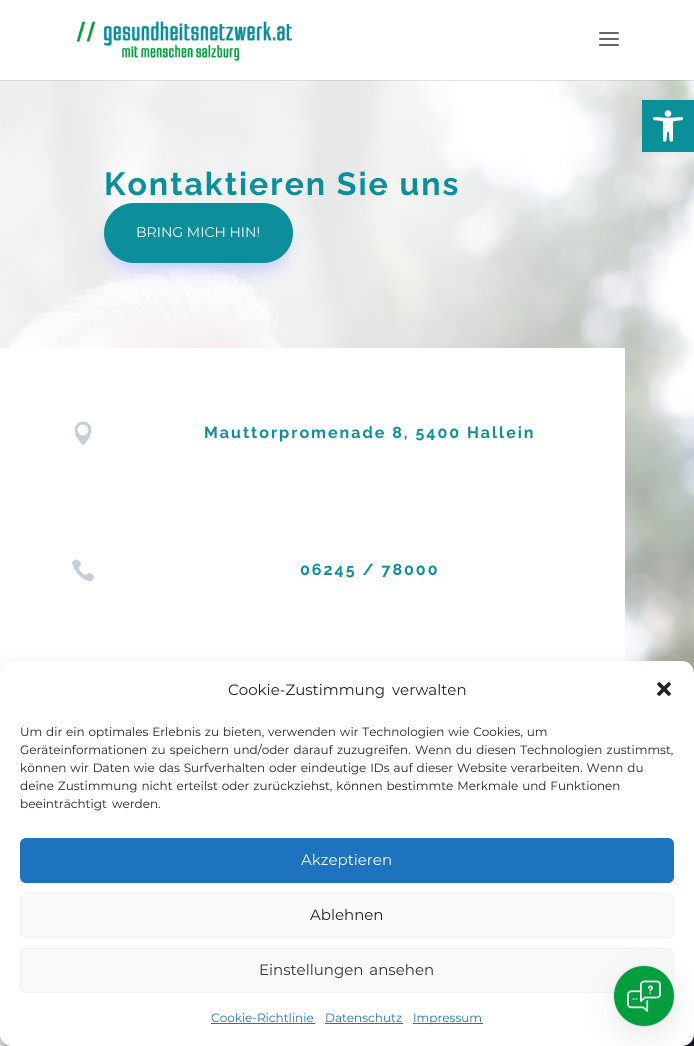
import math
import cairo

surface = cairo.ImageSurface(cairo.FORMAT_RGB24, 694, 1046)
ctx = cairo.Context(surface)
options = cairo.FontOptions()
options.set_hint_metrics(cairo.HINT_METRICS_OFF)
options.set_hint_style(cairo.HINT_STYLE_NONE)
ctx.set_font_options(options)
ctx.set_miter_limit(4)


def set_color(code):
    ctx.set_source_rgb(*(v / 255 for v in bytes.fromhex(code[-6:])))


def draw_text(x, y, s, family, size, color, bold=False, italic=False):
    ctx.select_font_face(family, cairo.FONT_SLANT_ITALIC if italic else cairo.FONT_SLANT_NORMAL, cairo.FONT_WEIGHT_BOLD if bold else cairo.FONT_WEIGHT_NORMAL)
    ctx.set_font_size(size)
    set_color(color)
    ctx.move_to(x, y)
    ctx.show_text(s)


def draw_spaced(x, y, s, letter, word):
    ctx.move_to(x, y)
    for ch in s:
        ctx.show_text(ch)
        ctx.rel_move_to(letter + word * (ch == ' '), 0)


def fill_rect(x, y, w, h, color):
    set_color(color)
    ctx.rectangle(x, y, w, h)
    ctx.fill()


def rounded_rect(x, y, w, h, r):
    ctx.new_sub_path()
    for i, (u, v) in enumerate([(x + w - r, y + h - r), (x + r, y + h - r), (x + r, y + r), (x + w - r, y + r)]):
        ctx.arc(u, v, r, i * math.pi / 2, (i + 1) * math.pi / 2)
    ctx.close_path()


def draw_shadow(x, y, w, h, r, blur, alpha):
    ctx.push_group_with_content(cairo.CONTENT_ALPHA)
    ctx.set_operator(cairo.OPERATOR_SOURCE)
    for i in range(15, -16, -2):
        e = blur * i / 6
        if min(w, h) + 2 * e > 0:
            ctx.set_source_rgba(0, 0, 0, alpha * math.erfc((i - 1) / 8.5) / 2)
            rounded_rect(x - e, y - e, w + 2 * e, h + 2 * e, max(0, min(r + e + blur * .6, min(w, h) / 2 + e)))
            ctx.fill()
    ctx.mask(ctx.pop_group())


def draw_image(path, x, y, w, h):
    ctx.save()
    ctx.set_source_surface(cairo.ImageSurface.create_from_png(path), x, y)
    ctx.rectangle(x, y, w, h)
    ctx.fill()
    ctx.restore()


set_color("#ffffff")
ctx.paint()
draw_image("assets/img4.png", 0, 80, 694, 966)
set_color("#000000")
draw_shadow(642, 100, 52, 52, 0, 5, 0.1)
fill_rect(642, 100, 52, 52, "#0b8f9b")
draw_image("assets/img1.png", 653, 110, 30, 32)
ctx.set_source_rgba(0, 0, 0, 0.1)
ctx.rectangle(0, 80, 694, 1)
ctx.fill()
draw_image("assets/img2.png", 76, 21, 216, 40)
draw_image("assets/img3.png", 599, 32, 20, 14)
ctx.select_font_face("Raleway", cairo.FONT_SLANT_NORMAL, cairo.FONT_WEIGHT_BOLD)
ctx.set_font_size(32)
set_color("#0d8f9b")
draw_spaced(104, 195, "Kontaktieren Sie uns", 2, 0)
set_color("#7f8dff")
draw_shadow(110, 221, 177, 48, 24, 9, 0.4)
set_color("#0d8f9b")
rounded_rect(104, 203, 189, 60, 30)
ctx.fill()
draw_text(136, 237, "BRING MICH HIN!", "Montserrat", 14, "#ffffff")
fill_rect(0, 348, 625, 325, "#ffffff")
draw_image("assets/img5.png", 74, 421, 18, 25)
ctx.select_font_face("Raleway", cairo.FONT_SLANT_NORMAL, cairo.FONT_WEIGHT_BOLD)
ctx.set_font_size(16)
set_color("#0d8f9b")
draw_spaced(204, 438, "Mauttorpromenade 8, 5400 Hallein", 2, 0)
draw_image("assets/img6.png", 72, 559, 22, 23)
draw_spaced(300, 575, "06245 / 78000", 2, 0)
fill_rect(0, 1034, 12, 12, "#ffffff")
set_color("#000000")
draw_shadow(0, 667, 694, 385, 12, 3, 0.23)
draw_shadow(0, 671, 694, 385, 12, 10, 0.19)
set_color("#ffffff")
rounded_rect(0, 661, 694, 385, 12)
ctx.fill()
ctx.select_font_face("Montserrat")
ctx.set_font_size(15)
set_color("#222222")
draw_spaced(228, 695, "Cookie-Zustimmung verwalten", 0, 3)
draw_image("assets/img7.png", 657, 682, 14, 14)
ctx.set_font_size(12)
draw_spaced(20, 736, "Um dir ein optimales Erlebnis zu bieten, verwenden wir Technologien wie Cookies, um", 0, 0.7)
draw_spaced(20, 754, "Geräteinformationen zu speichern und/oder darauf zuzugreifen. Wenn du diesen Technologien zustimmst,", 0, 1)
draw_spaced(20, 772, "können wir Daten wie das Surfverhalten oder eindeutige IDs auf dieser Website verarbeiten. Wenn du", 0, 0.75)
draw_spaced(20, 790, "deine Zustimmung nicht erteilst oder zurückziehst, können bestimmte Merkmale und Funktionen", 0, 0.75)
draw_spaced(20, 808, "beeinträchtigt werden.", 0, 2)
set_color("#1e73be")
rounded_rect(20.5, 838.5, 653, 44, 5.5)
ctx.fill_preserve()
ctx.set_line_width(1)
ctx.stroke()
draw_text(301, 865, "Akzeptieren", "Montserrat", 15, "#ffffff")
set_color("#f9f9f9")
rounded_rect(20.5, 893.5, 653, 44, 5.5)
ctx.fill_preserve()
set_color("#f2f2f2")
ctx.stroke()
draw_text(310, 920, "Ablehnen", "Montserrat", 15, "#222222")
set_color("#f9f9f9")
rounded_rect(20.5, 948.5, 653, 44, 5.5)
ctx.fill_preserve()
set_color("#f2f2f2")
ctx.stroke()
set_color("#333333")
draw_spaced(259, 975, "Einstellungen ansehen", 0, 2)
draw_text(211, 1022, "Cookie-Richtlinie", "Montserrat", 12, "#1e73be")
fill_rect(211, 1023, 104, 1, "#1e73be")
draw_text(325, 1022, "Datenschutz", "Montserrat", 12, "#1e73be")
fill_rect(325, 1023, 78, 1, "#1e73be")
fill_rect(413, 1023, 70, 1, "#1e73be")
draw_text(413, 1022, "Impressum", "Montserrat", 12, "#1e73be")
ctx.new_path()
ctx.arc(644, 996, 30.5, 0, 2 * math.pi)
ctx.set_source_rgba(0.588, 0.588, 0.588, 0.2)
ctx.stroke()
set_color("#969696")
draw_shadow(614, 976, 60, 60, 30, 15, 0.2)
set_color("#059e3e")
ctx.arc(644, 996, 30, 0, 2 * math.pi)
ctx.fill()
draw_image("assets/img8.png", 627, 980, 34, 32)
surface.write_to_png("output.png")
